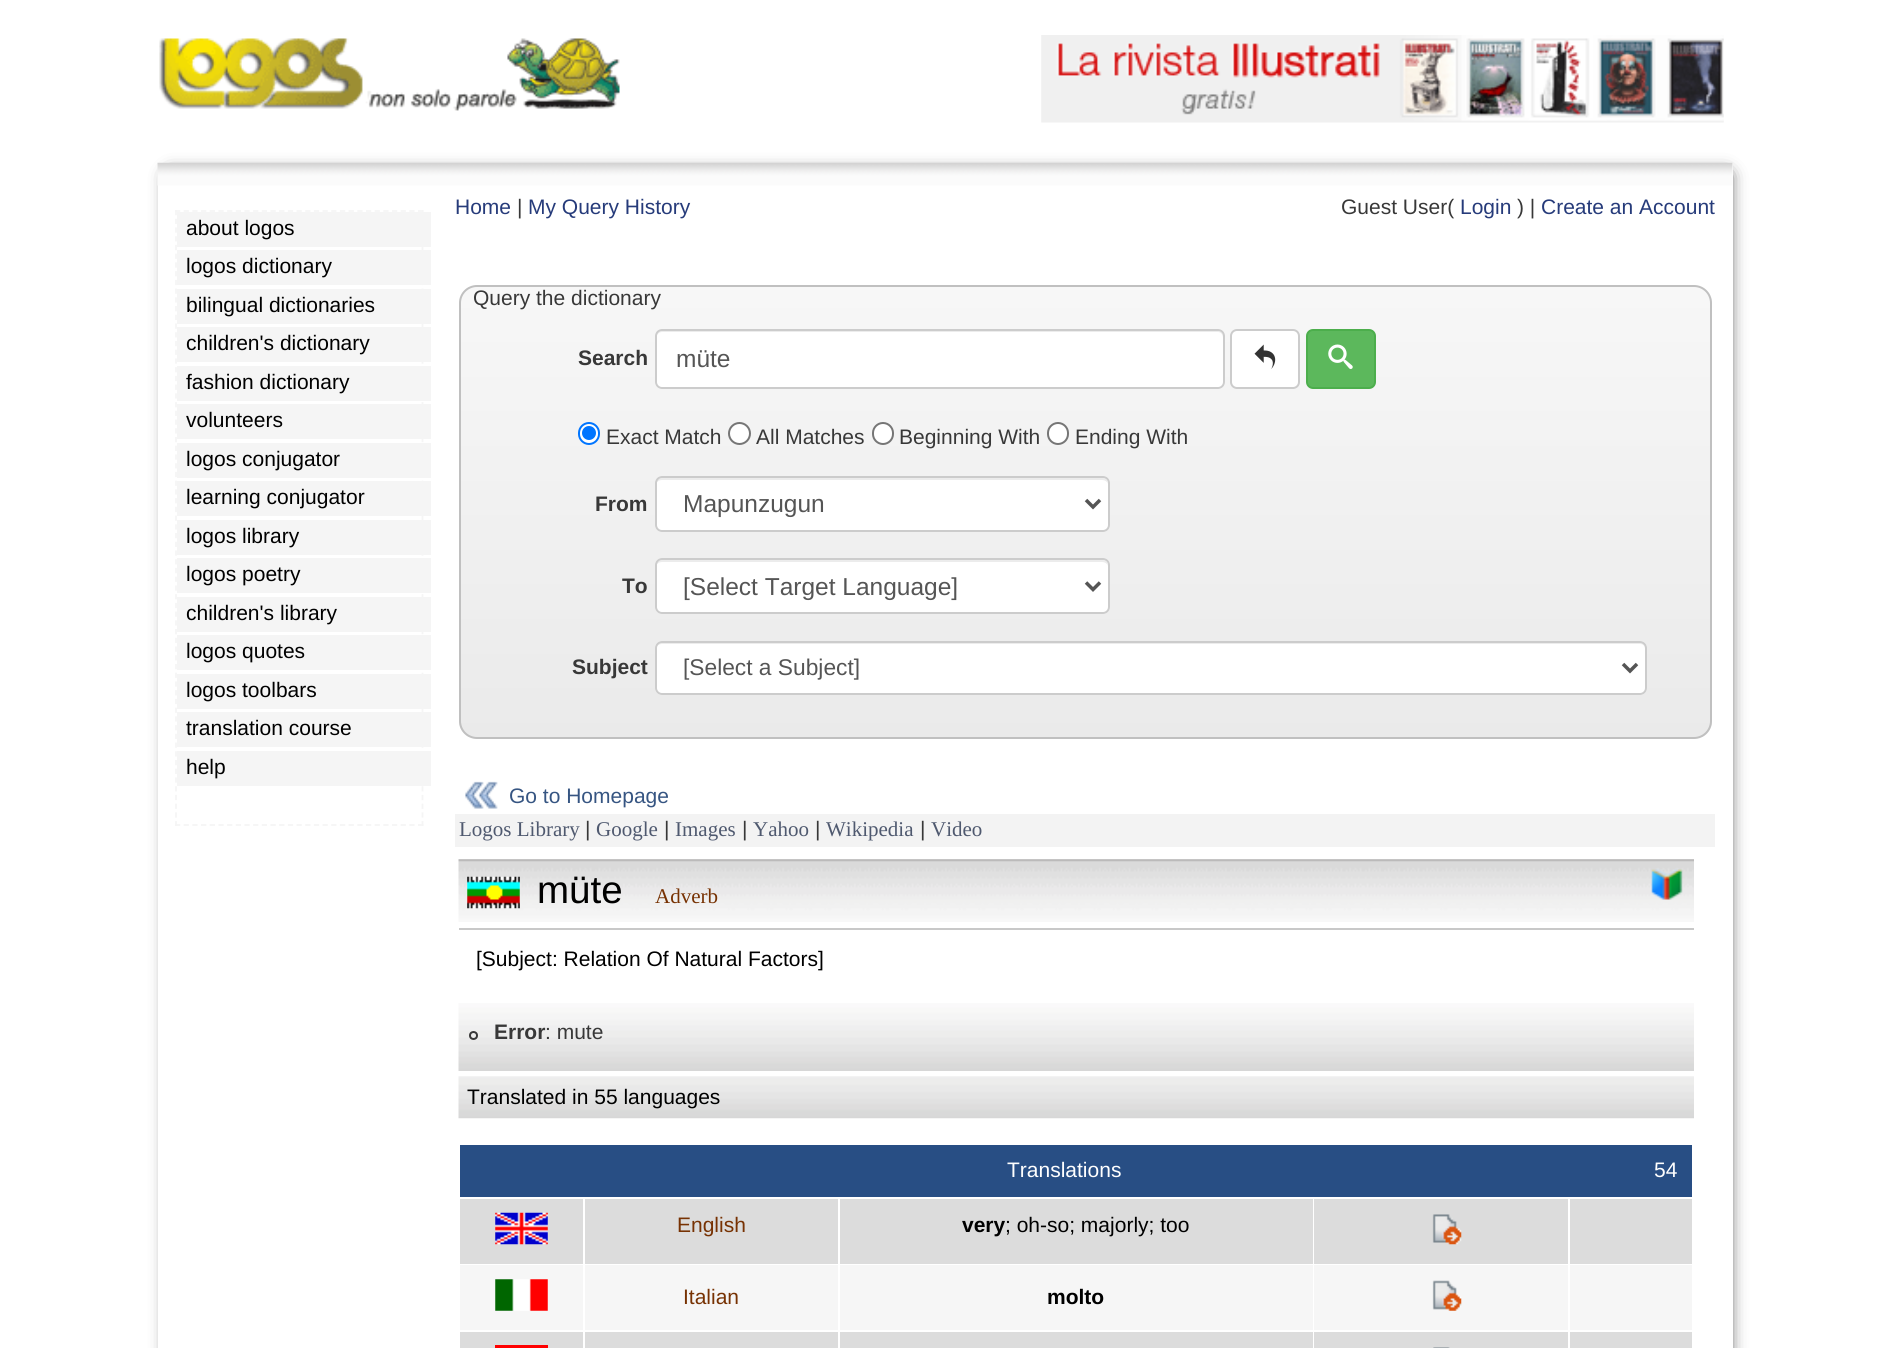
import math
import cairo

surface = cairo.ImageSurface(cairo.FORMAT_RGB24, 1889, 1348)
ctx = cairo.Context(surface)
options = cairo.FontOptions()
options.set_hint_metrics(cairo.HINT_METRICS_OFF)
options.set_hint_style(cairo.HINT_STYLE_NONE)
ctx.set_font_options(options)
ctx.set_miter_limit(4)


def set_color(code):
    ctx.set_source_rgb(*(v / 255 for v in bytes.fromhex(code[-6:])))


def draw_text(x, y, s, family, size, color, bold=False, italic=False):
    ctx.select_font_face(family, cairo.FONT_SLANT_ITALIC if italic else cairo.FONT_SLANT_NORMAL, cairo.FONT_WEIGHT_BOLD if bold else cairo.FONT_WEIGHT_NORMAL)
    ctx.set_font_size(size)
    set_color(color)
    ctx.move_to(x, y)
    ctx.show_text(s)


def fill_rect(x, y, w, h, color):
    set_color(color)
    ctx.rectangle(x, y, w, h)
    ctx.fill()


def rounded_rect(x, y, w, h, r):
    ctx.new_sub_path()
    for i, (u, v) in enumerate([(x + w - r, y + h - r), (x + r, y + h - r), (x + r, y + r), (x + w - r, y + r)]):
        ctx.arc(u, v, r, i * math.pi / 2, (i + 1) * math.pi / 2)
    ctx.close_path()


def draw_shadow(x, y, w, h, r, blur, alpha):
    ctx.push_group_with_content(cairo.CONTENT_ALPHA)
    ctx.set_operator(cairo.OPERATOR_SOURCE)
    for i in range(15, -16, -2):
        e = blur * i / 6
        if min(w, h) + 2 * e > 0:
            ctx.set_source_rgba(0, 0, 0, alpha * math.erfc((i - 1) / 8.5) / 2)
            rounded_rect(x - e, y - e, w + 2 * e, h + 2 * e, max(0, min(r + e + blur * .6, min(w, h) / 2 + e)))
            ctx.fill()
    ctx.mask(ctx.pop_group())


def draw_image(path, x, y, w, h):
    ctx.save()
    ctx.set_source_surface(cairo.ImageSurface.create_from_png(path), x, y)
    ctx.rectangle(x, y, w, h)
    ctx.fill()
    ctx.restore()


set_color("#ffffff")
ctx.paint()
draw_image("assets/img1.png", 159, 38, 461, 73)
draw_image("assets/img2.png", 1041, 35, 683, 88)
ctx.save()
ctx.set_fill_rule(cairo.FILL_RULE_EVEN_ODD)
ctx.new_path()
ctx.move_to(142, 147)
ctx.line_to(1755, 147)
ctx.line_to(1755, 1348)
ctx.line_to(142, 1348)
ctx.close_path()
ctx.move_to(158, 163)
ctx.line_to(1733, 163)
ctx.line_to(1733, 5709)
ctx.line_to(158, 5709)
ctx.close_path()
ctx.clip()
set_color("#000000")
draw_shadow(170, 175, 1557, 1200, 0, 9, 1)
ctx.restore()
draw_image("assets/img3.png", 157, 162, 1576, 24)
ctx.new_path()
ctx.move_to(175, 211)
ctx.line_to(423.5, 211)
set_color("#f5f5f5")
ctx.set_line_width(1.8)
ctx.set_dash([5.25, 3.43])
ctx.stroke()
ctx.new_path()
ctx.move_to(422.5, 210)
ctx.line_to(422.5, 826)
ctx.set_dash([5.25, 3.48])
ctx.stroke()
ctx.new_path()
ctx.move_to(175, 825)
ctx.line_to(423.5, 825)
ctx.set_dash([5.25, 3.43])
ctx.stroke()
ctx.new_path()
ctx.move_to(176, 210)
ctx.line_to(176, 826)
ctx.set_dash([5.25, 3.48])
ctx.stroke()
fill_rect(177, 212, 254, 35, "#f5f5f5")
draw_text(186, 235, "about logos", "Liberation Sans", 21, "#000000")
fill_rect(177, 250, 254, 35, "#f5f5f5")
draw_text(186, 273, "logos dictionary", "Liberation Sans", 21, "#000000")
fill_rect(177, 289, 254, 35, "#f5f5f5")
draw_text(186, 312, "bilingual dictionaries", "Liberation Sans", 21, "#000000")
fill_rect(177, 327, 254, 35, "#f5f5f5")
draw_text(186, 350, "children's dictionary", "Liberation Sans", 21, "#000000")
fill_rect(177, 366, 254, 35, "#f5f5f5")
draw_text(186, 389, "fashion dictionary", "Liberation Sans", 21, "#000000")
fill_rect(177, 404, 254, 35, "#f5f5f5")
draw_text(186, 427, "volunteers", "Liberation Sans", 21, "#000000")
fill_rect(177, 443, 254, 35, "#f5f5f5")
draw_text(186, 466, "logos conjugator", "Liberation Sans", 21, "#000000")
fill_rect(177, 481, 254, 35, "#f5f5f5")
draw_text(186, 504, "learning conjugator", "Liberation Sans", 21, "#000000")
fill_rect(177, 520, 254, 35, "#f5f5f5")
draw_text(186, 543, "logos library", "Liberation Sans", 21, "#000000")
fill_rect(177, 558, 254, 35, "#f5f5f5")
draw_text(186, 581, "logos poetry", "Liberation Sans", 21, "#000000")
fill_rect(177, 597, 254, 35, "#f5f5f5")
draw_text(186, 620, "children's library", "Liberation Sans", 21, "#000000")
fill_rect(177, 635, 254, 35, "#f5f5f5")
draw_text(186, 658, "logos quotes", "Liberation Sans", 21, "#000000")
fill_rect(177, 674, 254, 35, "#f5f5f5")
draw_text(186, 697, "logos toolbars", "Liberation Sans", 21, "#000000")
fill_rect(177, 712, 254, 35, "#f5f5f5")
draw_text(186, 735, "translation course", "Liberation Sans", 21, "#000000")
fill_rect(177, 751, 254, 35, "#f5f5f5")
draw_text(186, 774, "help", "Liberation Sans", 21, "#000000")
draw_text(455, 214, "Home", "Liberation Sans", 21, "#263b7a")
draw_text(517, 214, "|", "Liberation Sans", 21, "#383838")
draw_text(528, 214, "My Query History", "Liberation Sans", 21, "#263b7a")
draw_text(1341, 214, "Guest User(", "Liberation Sans", 21, "#383838")
draw_text(1460, 214, "Login", "Liberation Sans", 21, "#263b7a")
draw_text(1517, 214, ") |", "Liberation Sans", 21, "#383838")
draw_text(1541, 214, "Create an Account", "Liberation Sans", 21, "#263b7a")
ctx.save()
rounded_rect(459, 285, 1253, 454, 18)
ctx.clip()
gradient = cairo.LinearGradient(1085, 287, 1085, 737)
gradient.add_color_stop_rgba(0, 0.969, 0.969, 0.969, 1)
gradient.add_color_stop_rgba(1, 0.918, 0.918, 0.918, 1)
ctx.set_source(gradient)
ctx.rectangle(459, 287, 1253, 450)
ctx.fill()
ctx.restore()
rounded_rect(460, 286, 1251, 452, 17)
set_color("#c0c0c0")
ctx.set_line_width(2)
ctx.set_dash([])
ctx.stroke()
draw_text(473, 305, "Query the dictionary", "Liberation Sans", 21, "#383838")
draw_text(578, 365, "Search", "Liberation Sans", 21, "#383838", bold=True)
set_color("#ffffff")
rounded_rect(655, 329, 570, 60, 7)
ctx.fill()
set_color("#ececec")
ctx.new_path()
ctx.move_to(662, 332)
ctx.line_to(1218, 332)
ctx.curve_to(1221, 332, 1223, 335, 1223, 338)
ctx.line_to(1223, 336)
ctx.curve_to(1223, 333, 1221, 331, 1218, 331)
ctx.line_to(661, 331)
ctx.curve_to(658, 331, 656, 333, 656, 336)
ctx.line_to(656, 338)
ctx.curve_to(656, 335, 659, 332, 662, 332)
ctx.close_path()
ctx.fill()
rounded_rect(656, 330, 568, 58, 6)
set_color("#cccccc")
ctx.stroke()
draw_text(676, 367, "müte", "Liberation Sans", 24.5, "#555555")
set_color("#ffffff")
rounded_rect(1231, 330, 68, 58, 6)
ctx.fill_preserve()
set_color("#cccccc")
ctx.stroke()
draw_image("assets/img4.png", 1254, 344, 22, 25)
set_color("#5cb85c")
rounded_rect(1307, 330, 68, 58, 6)
ctx.fill_preserve()
set_color("#4cae4c")
ctx.stroke()
draw_image("assets/img5.png", 1328, 344, 25, 25)
set_color("#ffffff")
rounded_rect(579, 423, 20, 21, 10)
ctx.fill_preserve()
set_color("#0075ff")
ctx.stroke()
ctx.arc(589, 433, 7, 0, 2 * math.pi)
ctx.fill()
draw_text(606, 444, "Exact Match", "Liberation Sans", 21, "#383838")
set_color("#ffffff")
ctx.new_path()
ctx.arc(739.5, 433.5, 10.5, 0, 2 * math.pi)
ctx.fill_preserve()
set_color("#767676")
ctx.stroke()
draw_text(756, 444, "All Matches", "Liberation Sans", 21, "#383838")
set_color("#ffffff")
rounded_rect(873, 423, 20, 21, 10)
ctx.fill_preserve()
set_color("#767676")
ctx.stroke()
draw_text(899, 444, "Beginning With", "Liberation Sans", 21, "#383838")
set_color("#ffffff")
rounded_rect(1048, 423, 20, 21, 10)
ctx.fill_preserve()
set_color("#767676")
ctx.stroke()
draw_text(1075, 444, "Ending With", "Liberation Sans", 21, "#383838")
draw_text(595, 511, "From", "Liberation Sans", 21, "#383838", bold=True)
set_color("#ffffff")
rounded_rect(655, 476, 455, 56, 7)
ctx.fill()
set_color("#ececec")
ctx.new_path()
ctx.move_to(662, 480)
ctx.line_to(1102, 480)
ctx.curve_to(1105, 480, 1108, 482, 1108, 485)
ctx.curve_to(1108, 482, 1107, 478, 1103, 478)
ctx.line_to(661, 478)
ctx.curve_to(657, 478, 656, 482, 656, 485)
ctx.curve_to(656, 482, 659, 480, 662, 480)
ctx.close_path()
ctx.fill()
rounded_rect(656, 477, 453, 54, 6)
set_color("#cccccc")
ctx.stroke()
ctx.new_path()
ctx.move_to(1086, 500)
ctx.line_to(1093, 507)
ctx.line_to(1100, 500)
set_color("#555555")
ctx.set_line_width(3.5)
ctx.stroke()
draw_text(683, 512, "Mapunzugun", "Liberation Sans", 24.5, "#555555")
draw_text(622, 593, "To", "Liberation Sans", 21, "#383838", bold=True)
set_color("#ffffff")
rounded_rect(655, 558, 455, 56, 7)
ctx.fill()
set_color("#ececec")
ctx.new_path()
ctx.move_to(662, 562)
ctx.line_to(1102, 562)
ctx.curve_to(1105, 562, 1108, 564, 1108, 567)
ctx.curve_to(1108, 564, 1107, 560, 1103, 560)
ctx.line_to(661, 560)
ctx.curve_to(657, 560, 656, 564, 656, 567)
ctx.curve_to(656, 564, 659, 562, 662, 562)
ctx.close_path()
ctx.fill()
rounded_rect(656, 559, 453, 54, 6)
set_color("#cccccc")
ctx.set_line_width(2)
ctx.stroke()
ctx.new_path()
ctx.move_to(1086, 582.5)
ctx.line_to(1093, 589.5)
ctx.line_to(1100, 582.5)
set_color("#555555")
ctx.set_line_width(3.5)
ctx.stroke()
draw_text(683, 595, "[Select Target Language]", "Liberation Sans", 24.5, "#555555")
draw_text(572, 674, "Subject", "Liberation Sans", 21, "#383838", bold=True)
set_color("#ffffff")
rounded_rect(655, 641, 992, 54, 7)
ctx.fill()
set_color("#ececec")
ctx.new_path()
ctx.move_to(662, 644)
ctx.line_to(1640, 644)
ctx.curve_to(1643, 644, 1645, 646, 1645, 649)
ctx.line_to(1645, 647)
ctx.curve_to(1645, 644, 1643, 642, 1640, 642)
ctx.line_to(661, 642)
ctx.curve_to(658, 642, 656, 644, 656, 647)
ctx.line_to(656, 649)
ctx.curve_to(656, 646, 659, 644, 662, 644)
ctx.close_path()
ctx.fill()
rounded_rect(656, 642, 990, 52, 6)
set_color("#cccccc")
ctx.set_line_width(2)
ctx.stroke()
ctx.new_path()
ctx.move_to(1623, 664)
ctx.line_to(1630, 671)
ctx.line_to(1637, 664)
set_color("#555555")
ctx.set_line_width(3.5)
ctx.stroke()
draw_text(683, 675, "[Select a Subject]", "Liberation Sans", 22.75, "#555555")
draw_image("assets/img6.png", 465, 781, 33, 28)
draw_text(509, 803, "Go to Homepage", "Liberation Sans", 21, "#365582")
fill_rect(455, 814, 1260, 33, "#f3f3f3")
draw_text(459, 836, "Logos Library", "Liberation Serif", 21, "#4f596f")
draw_text(585, 836, "|", "Liberation Sans", 21, "#383838")
draw_text(596, 836, "Google", "Liberation Serif", 21, "#4f596f")
draw_text(664, 836, "|", "Liberation Sans", 21, "#383838")
draw_text(675, 836, "Images", "Liberation Serif", 21, "#4f596f")
draw_text(742, 836, "|", "Liberation Sans", 21, "#383838")
draw_text(753, 836, "Yahoo", "Liberation Serif", 21, "#4f596f")
draw_text(815, 836, "|", "Liberation Sans", 21, "#383838")
draw_text(826, 836, "Wikipedia", "Liberation Serif", 21, "#4f596f")
draw_text(920, 836, "|", "Liberation Sans", 21, "#383838")
draw_text(931, 836, "Video", "Liberation Serif", 21, "#4f596f")
draw_image("assets/img7.png", 458, 859, 1236, 63)
draw_image("assets/img8.png", 467, 876, 53, 33)
draw_text(537, 903, "müte", "Liberation Sans", 38.5, "#000000")
draw_text(655, 903, "Adverb", "Liberation Serif", 21, "#773203")
draw_image("assets/img9.png", 1651, 868, 32, 32)
fill_rect(459, 928, 1235, 2, "#c8c8c8")
draw_text(476, 966, "[Subject: Relation Of Natural Factors]", "Liberation Sans", 21, "#000000")
draw_image("assets/img10.png", 458, 1003, 1236, 68)
ctx.arc(473.5, 1035.5, 3.5, 0, 2 * math.pi)
set_color("#383838")
ctx.set_line_width(2)
ctx.stroke()
draw_text(494, 1039, "Error", "Liberation Sans", 21, "#383838", bold=True)
draw_text(545, 1039, ": mute", "Liberation Sans", 21, "#383838")
draw_image("assets/img11.png", 458, 1076, 1236, 43)
draw_text(467, 1104, "Translated in 55 languages", "Liberation Sans", 21, "#000000")
fill_rect(460, 1145, 1232, 52, "#284e84")
draw_text(1007, 1177, "Translations", "Liberation Sans", 21, "#ffffff")
draw_text(1654, 1177, "54", "Liberation Sans", 21, "#ffffff")
fill_rect(460, 1199, 123, 65, "#dcdcdc")
draw_image("assets/img12.png", 495, 1212, 53, 33)
fill_rect(585, 1199, 253, 65, "#dcdcdc")
draw_text(677, 1232, "English", "Liberation Sans", 21, "#773203")
fill_rect(840, 1199, 473, 65, "#dcdcdc")
draw_text(962, 1232, "very", "Liberation Sans", 21, "#000000", bold=True)
draw_text(1005, 1232, "; oh-so; majorly; too", "Liberation Sans", 21, "#000000")
fill_rect(1314, 1199, 254, 65, "#dcdcdc")
draw_image("assets/img13.png", 1432, 1214, 30, 31)
fill_rect(1570, 1199, 122, 65, "#dcdcdc")
fill_rect(460, 1265, 123, 65, "#f6f6f6")
draw_image("assets/img14.png", 495, 1279, 53, 32)
fill_rect(585, 1265, 253, 65, "#f6f6f6")
draw_text(683, 1304, "Italian", "Liberation Sans", 21, "#773203")
fill_rect(840, 1265, 473, 65, "#f6f6f6")
draw_text(1047, 1304, "molto", "Liberation Sans", 21, "#000000", bold=True)
fill_rect(1314, 1265, 254, 65, "#f6f6f6")
draw_image("assets/img15.png", 1432, 1280, 30, 31)
fill_rect(1570, 1265, 122, 65, "#f6f6f6")
fill_rect(460, 1332, 123, 16, "#dcdcdc")
fill_rect(495, 1345, 53, 3, "#ff0000")
fill_rect(585, 1332, 253, 16, "#dcdcdc")
fill_rect(840, 1332, 473, 16, "#dcdcdc")
fill_rect(1314, 1332, 254, 16, "#dcdcdc")
draw_image("assets/img16.png", 1433, 1347, 17, 1)
fill_rect(1570, 1332, 122, 16, "#dcdcdc")
surface.write_to_png("output.png")
